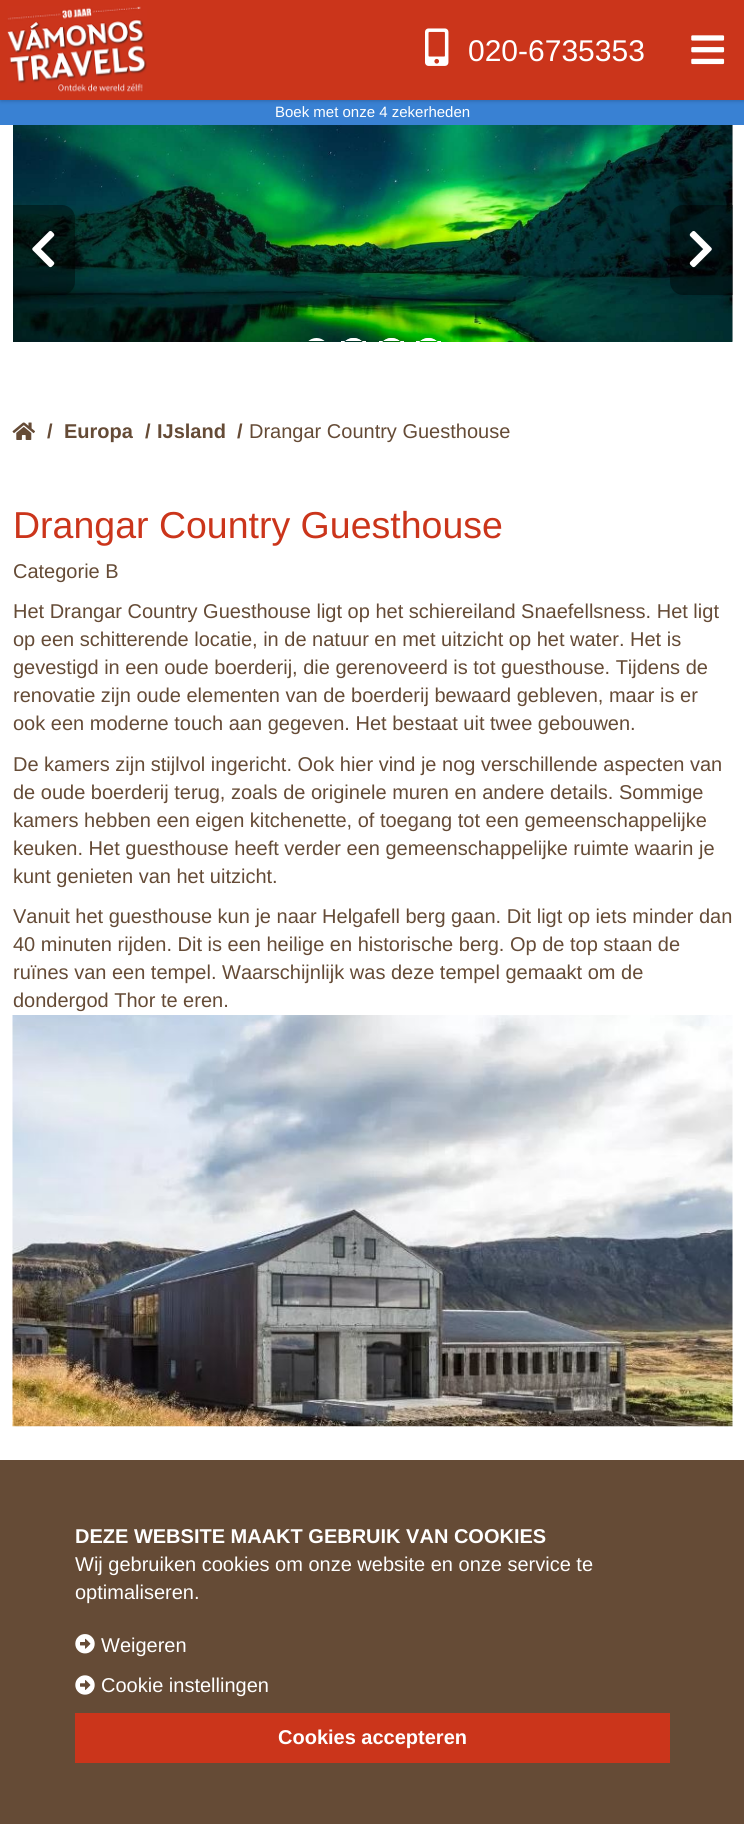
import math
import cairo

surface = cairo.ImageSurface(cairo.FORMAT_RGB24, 744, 1824)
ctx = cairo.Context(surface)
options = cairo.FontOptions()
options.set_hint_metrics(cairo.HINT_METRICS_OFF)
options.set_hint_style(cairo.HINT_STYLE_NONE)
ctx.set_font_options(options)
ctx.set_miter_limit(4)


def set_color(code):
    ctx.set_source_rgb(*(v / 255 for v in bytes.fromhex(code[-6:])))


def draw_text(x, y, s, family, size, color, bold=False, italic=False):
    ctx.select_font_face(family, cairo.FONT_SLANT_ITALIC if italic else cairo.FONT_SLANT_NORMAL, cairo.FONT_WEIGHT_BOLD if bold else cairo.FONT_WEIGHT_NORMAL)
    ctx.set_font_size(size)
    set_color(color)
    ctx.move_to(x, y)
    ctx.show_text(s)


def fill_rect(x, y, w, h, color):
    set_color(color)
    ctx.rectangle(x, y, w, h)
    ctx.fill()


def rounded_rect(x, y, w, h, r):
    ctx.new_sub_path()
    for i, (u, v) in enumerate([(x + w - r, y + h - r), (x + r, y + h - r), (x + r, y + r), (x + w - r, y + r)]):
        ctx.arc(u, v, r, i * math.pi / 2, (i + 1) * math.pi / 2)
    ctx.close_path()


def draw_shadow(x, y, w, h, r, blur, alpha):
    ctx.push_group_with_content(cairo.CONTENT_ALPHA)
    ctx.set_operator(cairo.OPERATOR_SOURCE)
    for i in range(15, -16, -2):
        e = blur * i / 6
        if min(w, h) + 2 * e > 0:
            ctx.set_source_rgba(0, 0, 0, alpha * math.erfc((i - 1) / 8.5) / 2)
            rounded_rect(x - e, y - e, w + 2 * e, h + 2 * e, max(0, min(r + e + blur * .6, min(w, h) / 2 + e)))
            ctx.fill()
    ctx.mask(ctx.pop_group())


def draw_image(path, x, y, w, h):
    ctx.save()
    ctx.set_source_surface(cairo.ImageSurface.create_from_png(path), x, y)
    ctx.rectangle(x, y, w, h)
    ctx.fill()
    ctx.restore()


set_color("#ffffff")
ctx.paint()
fill_rect(0, 100, 744, 25, "#3981d3")
set_color("#000000")
draw_shadow(1, 0, 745, 100, 0, 2.5, 0.3)
fill_rect(0, 0, 744, 100, "#cb351b")
draw_image("assets/img1.png", 7, 6, 140, 86)
draw_image("assets/img2.png", 425, 28, 24, 38)
draw_text(468, 61, "020-6735353", "Liberation Sans", 30, "#ffffff")
draw_image("assets/img3.png", 691, 35, 34, 30)
draw_text(275, 117, "Boek met onze 4 zekerheden", "Liberation Sans", 15, "#ffffff")
fill_rect(732, 125, 1, 216, "#dcdcdc")
draw_image("assets/img4.png", 13, 125, 720, 217)
ctx.set_source_rgba(0, 0, 0, 0.4)
ctx.new_path()
ctx.move_to(13, 205)
ctx.line_to(62, 205)
ctx.curve_to(69, 205, 75, 211, 75, 218)
ctx.line_to(75, 282)
ctx.curve_to(75, 289, 69, 295, 62, 295)
ctx.line_to(13, 295)
ctx.close_path()
ctx.fill()
draw_image("assets/img5.png", 32, 231, 23, 37)
ctx.new_path()
ctx.move_to(683, 205)
ctx.line_to(733, 205)
ctx.line_to(733, 295)
ctx.line_to(683, 295)
ctx.curve_to(676, 295, 670, 289, 670, 282)
ctx.line_to(670, 218)
ctx.curve_to(670, 211, 676, 205, 683, 205)
ctx.close_path()
ctx.fill()
draw_image("assets/img6.png", 689, 231, 23, 37)
ctx.save()
ctx.rectangle(13, 125, 720, 216)
ctx.clip()
ctx.arc(316.5, 350.5, 11, 0, 2 * math.pi)
set_color("#ffffff")
ctx.set_line_width(3)
ctx.stroke()
ctx.restore()
set_color("#ffffff")
ctx.new_path()
ctx.move_to(353.5, 338)
ctx.curve_to(360.5, 338, 366, 343.5, 366, 350.5)
ctx.line_to(366, 341)
ctx.line_to(341, 341)
ctx.line_to(341, 350.5)
ctx.curve_to(341, 343.5, 346.5, 338, 353.5, 338)
ctx.close_path()
ctx.fill()
ctx.save()
ctx.rectangle(13, 125, 720, 216)
ctx.clip()
ctx.arc(353.5, 350.5, 11, 0, 2 * math.pi)
ctx.set_line_width(3)
ctx.stroke()
ctx.restore()
ctx.new_path()
ctx.move_to(391.5, 338)
ctx.curve_to(398.5, 338, 404, 343.5, 404, 350.5)
ctx.line_to(404, 341)
ctx.line_to(379, 341)
ctx.line_to(379, 350.5)
ctx.curve_to(379, 343.5, 384.5, 338, 391.5, 338)
ctx.close_path()
ctx.fill()
ctx.save()
ctx.rectangle(13, 125, 720, 216)
ctx.clip()
ctx.arc(391.5, 350.5, 11, 0, 2 * math.pi)
ctx.set_line_width(3)
ctx.stroke()
ctx.restore()
ctx.new_path()
ctx.move_to(428.5, 338)
ctx.curve_to(435.5, 338, 441, 343.5, 441, 350.5)
ctx.line_to(441, 341)
ctx.line_to(416, 341)
ctx.line_to(416, 350.5)
ctx.curve_to(416, 343.5, 421.5, 338, 428.5, 338)
ctx.close_path()
ctx.fill()
ctx.save()
ctx.rectangle(13, 125, 720, 216)
ctx.clip()
ctx.arc(428.5, 350.5, 11, 0, 2 * math.pi)
ctx.set_line_width(3)
ctx.stroke()
ctx.restore()
draw_image("assets/img7.png", 12, 422, 23, 18)
draw_text(47, 438, "/", "Liberation Sans", 20, "#654b36", bold=True)
draw_text(64, 438, "Europa", "Liberation Sans", 20, "#654b36", bold=True)
draw_text(145, 438, "/", "Liberation Sans", 20, "#654b36", bold=True)
draw_text(157, 438, "IJsland", "Liberation Sans", 20, "#654b36", bold=True)
draw_text(237, 438, "/", "Liberation Sans", 20, "#654b36", bold=True)
draw_text(249, 438, "Drangar Country Guesthouse", "Liberation Sans", 20, "#654b36")
draw_text(13, 538, "Drangar Country Guesthouse", "Liberation Sans", 37.5, "#cb351b")
draw_text(13, 578, "Categorie B", "Liberation Sans", 20, "#654b36")
draw_text(13, 618, "Het Drangar Country Guesthouse ligt op het schiereiland Snaefellsness. Het ligt", "Liberation Sans", 20, "#654b36")
draw_text(13, 646, "op een schitterende locatie, in de natuur en met uitzicht op het water. Het is", "Liberation Sans", 20, "#654b36")
draw_text(13, 674, "gevestigd in een oude boerderij, die gerenoveerd is tot guesthouse. Tijdens de", "Liberation Sans", 20, "#654b36")
draw_text(13, 702, "renovatie zijn oude elementen van de boerderij bewaard gebleven, maar is er", "Liberation Sans", 20, "#654b36")
draw_text(13, 730, "ook een moderne touch aan gegeven. Het bestaat uit twee gebouwen.", "Liberation Sans", 20, "#654b36")
draw_text(13, 771, "De kamers zijn stijlvol ingericht. Ook hier vind je nog verschillende aspecten van", "Liberation Sans", 20, "#654b36")
draw_text(13, 799, "de oude boerderij terug, zoals de originele muren en andere details. Sommige", "Liberation Sans", 20, "#654b36")
draw_text(13, 827, "kamers hebben een eigen kitchenette, of toegang tot een gemeenschappelijke", "Liberation Sans", 20, "#654b36")
draw_text(13, 855, "keuken. Het guesthouse heeft verder een gemeenschappelijke ruimte waarin je", "Liberation Sans", 20, "#654b36")
draw_text(13, 883, "kunt genieten van het uitzicht.", "Liberation Sans", 20, "#654b36")
draw_text(13, 923, "Vanuit het guesthouse kun je naar Helgafell berg gaan. Dit ligt op iets minder dan", "Liberation Sans", 20, "#654b36")
draw_text(13, 951, "40 minuten rijden. Dit is een heilige en historische berg. Op de top staan de", "Liberation Sans", 20, "#654b36")
draw_text(13, 979, "ruïnes van een tempel. Waarschijnlijk was deze tempel gemaakt om de", "Liberation Sans", 20, "#654b36")
draw_text(13, 1007, "dondergod Thor te eren.", "Liberation Sans", 20, "#654b36")
draw_image("assets/img8.png", 12, 1015, 721, 412)
fill_rect(0, 1460, 744, 364, "#654b36")
draw_text(75, 1543, "DEZE WEBSITE MAAKT GEBRUIK VAN COOKIES", "Liberation Sans", 20, "#ffffff", bold=True)
draw_text(75, 1571, "Wij gebruiken cookies om onze website en onze service te", "Liberation Sans", 20, "#ffffff")
draw_text(75, 1599, "optimaliseren.", "Liberation Sans", 20, "#ffffff")
draw_image("assets/img9.png", 75, 1634, 20, 20)
draw_text(101, 1652, "Weigeren", "Liberation Sans", 20, "#ffffff")
draw_image("assets/img10.png", 75, 1675, 20, 20)
draw_text(101, 1692, "Cookie instellingen", "Liberation Sans", 20, "#ffffff")
fill_rect(75, 1713, 595, 50, "#cb351b")
draw_text(278, 1744, "Cookies accepteren", "Liberation Sans", 20, "#ffffff", bold=True)
surface.write_to_png("output.png")
